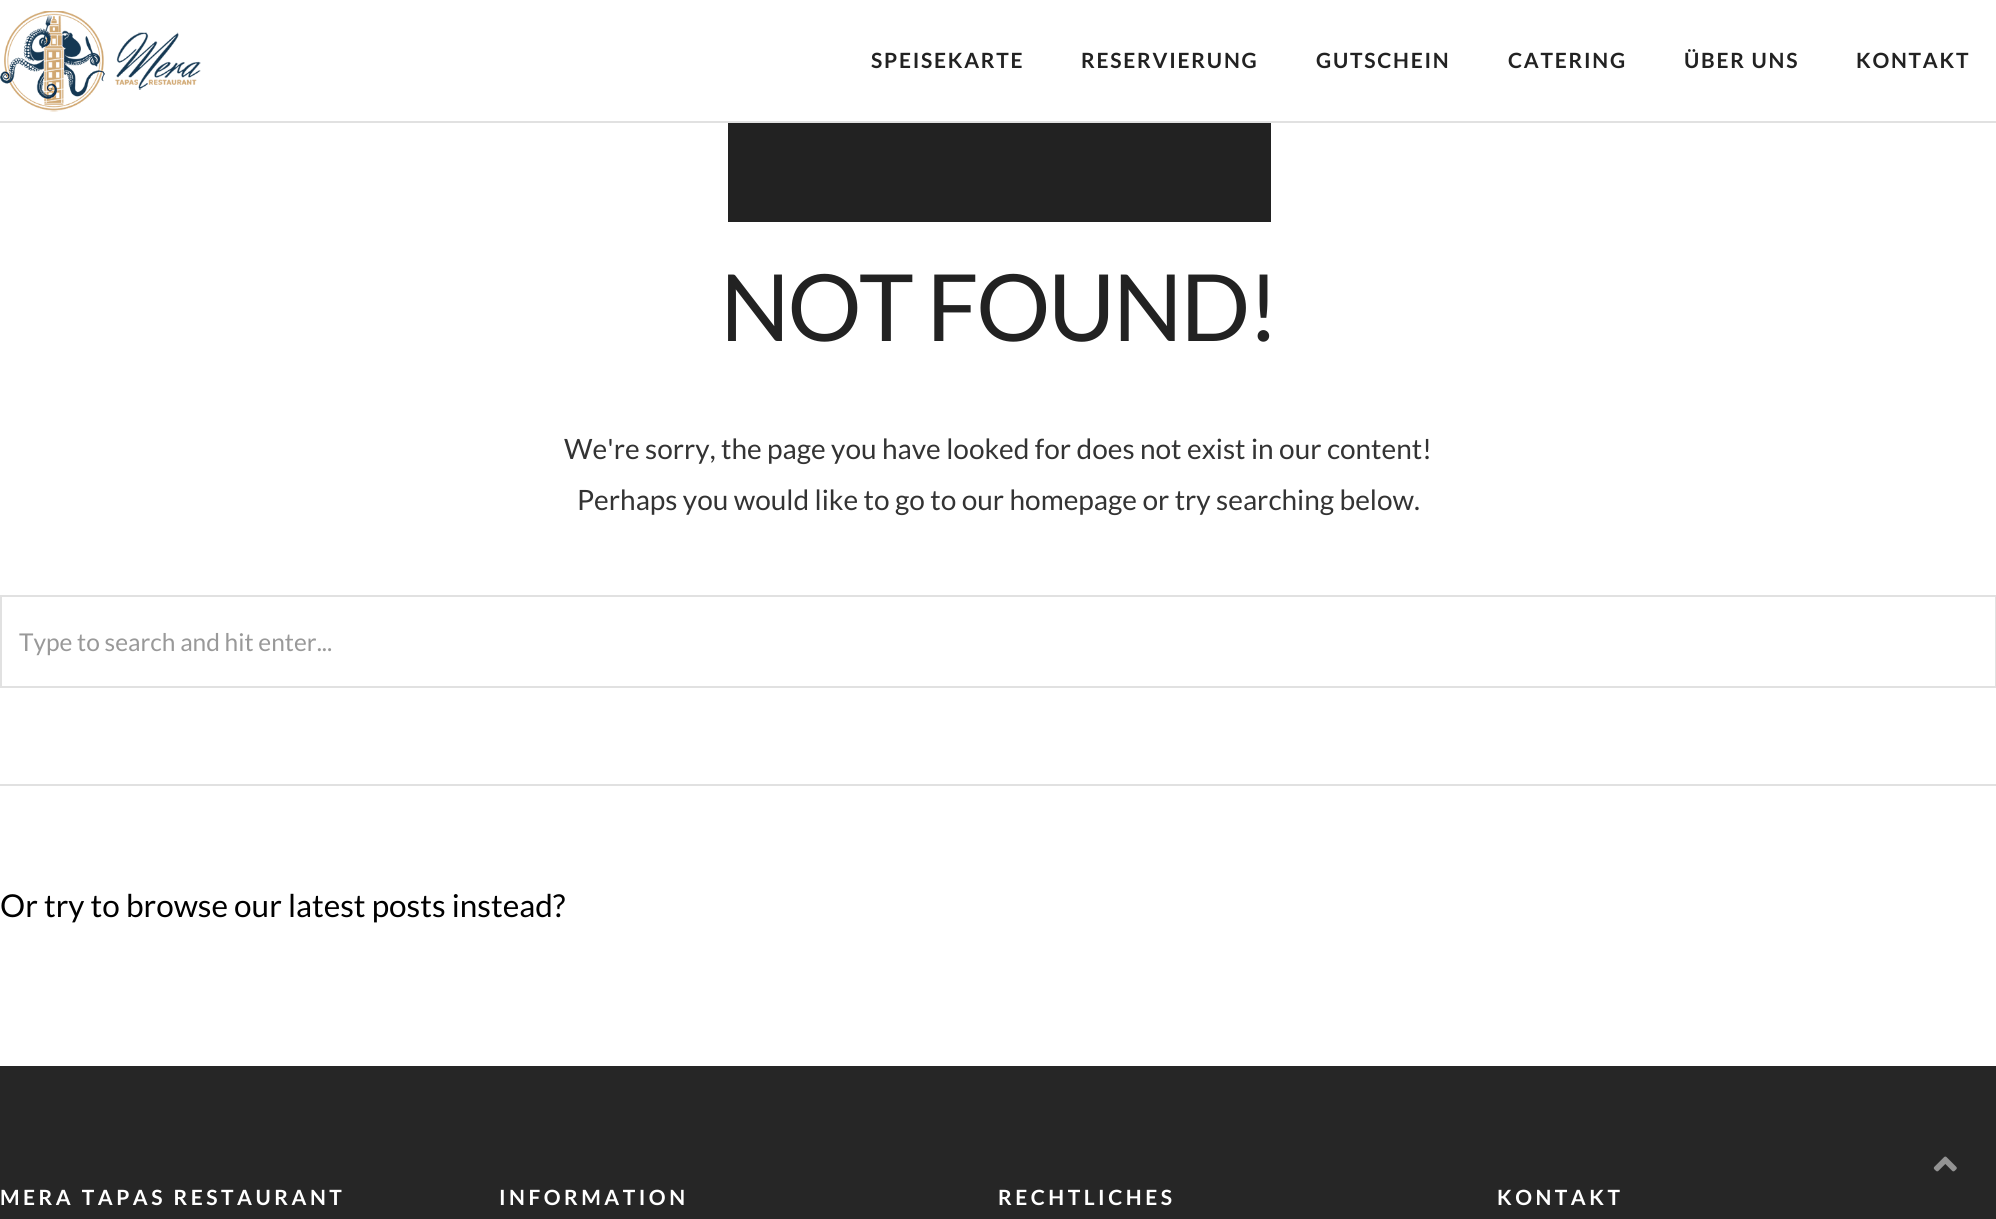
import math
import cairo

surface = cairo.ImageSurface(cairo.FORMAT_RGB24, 1996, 1219)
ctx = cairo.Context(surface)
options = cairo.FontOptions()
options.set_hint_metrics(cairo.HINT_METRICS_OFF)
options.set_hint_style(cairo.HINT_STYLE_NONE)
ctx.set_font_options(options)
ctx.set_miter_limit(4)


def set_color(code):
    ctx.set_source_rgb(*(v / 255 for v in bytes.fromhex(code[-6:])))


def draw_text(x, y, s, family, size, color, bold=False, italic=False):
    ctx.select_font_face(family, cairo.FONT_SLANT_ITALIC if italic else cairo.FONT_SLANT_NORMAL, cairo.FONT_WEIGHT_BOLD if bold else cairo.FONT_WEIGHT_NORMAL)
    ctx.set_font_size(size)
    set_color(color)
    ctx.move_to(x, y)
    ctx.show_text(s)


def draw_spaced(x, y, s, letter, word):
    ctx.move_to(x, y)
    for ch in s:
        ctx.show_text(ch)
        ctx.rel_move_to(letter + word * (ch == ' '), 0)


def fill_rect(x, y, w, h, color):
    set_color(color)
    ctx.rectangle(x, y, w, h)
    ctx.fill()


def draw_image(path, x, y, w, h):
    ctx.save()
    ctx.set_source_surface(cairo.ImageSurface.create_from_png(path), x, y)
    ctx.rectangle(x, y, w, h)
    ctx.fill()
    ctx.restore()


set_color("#ffffff")
ctx.paint()
fill_rect(0, 121, 1996, 2, "#e1e1e1")
draw_image("assets/img1.png", 0, 11, 201, 101)
ctx.select_font_face("Lato", cairo.FONT_SLANT_NORMAL, cairo.FONT_WEIGHT_BOLD)
ctx.set_font_size(21)
set_color("#222222")
draw_spaced(871, 68, "SPEISEKARTE", 1.75, 0)
draw_spaced(1081, 68, "RESERVIERUNG", 1.75, 0)
draw_spaced(1316, 68, "GUTSCHEIN", 1.75, 0)
draw_spaced(1508, 68, "CATERING", 1.75, 0)
draw_spaced(1684, 68, "ÜBER UNS", 1.75, 0)
draw_spaced(1856, 68, "KONTAKT", 1.75, 0)
fill_rect(728, 123, 543, 99, "#222222")
ctx.select_font_face("Lato")
ctx.set_font_size(92.75)
draw_spaced(720, 341, "NOT FOUND!", -2.6, 0)
draw_text(564, 459, "We're sorry, the page you have looked for does not exist in our content!", "Lato", 28, "#333333")
draw_text(577, 510, "Perhaps you would like to go to our homepage or try searching below.", "Lato", 28, "#333333")
ctx.rectangle(1, 596, 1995, 91)
set_color("#e1e1e1")
ctx.stroke()
draw_text(19, 651, "Type to search and hit enter...", "Lato", 24.5, "#999999")
fill_rect(0, 784, 1996, 2, "#e1e1e1")
draw_text(0, 917, "Or try to browse our latest posts instead?", "Lato", 31.5, "#000000")
fill_rect(0, 1066, 1996, 153, "#262626")
ctx.select_font_face("Lato", cairo.FONT_SLANT_NORMAL, cairo.FONT_WEIGHT_BOLD)
ctx.set_font_size(21)
set_color("#ffffff")
draw_spaced(0, 1205, "MERA TAPAS RESTAURANT", 3.5, 0)
draw_spaced(499, 1205, "INFORMATION", 3.5, 0)
draw_spaced(998, 1205, "RECHTLICHES", 3.5, 0)
draw_spaced(1497, 1205, "KONTAKT", 3.5, 0)
draw_image("assets/img2.png", 1933, 1156, 24, 16)
surface.write_to_png("output.png")
